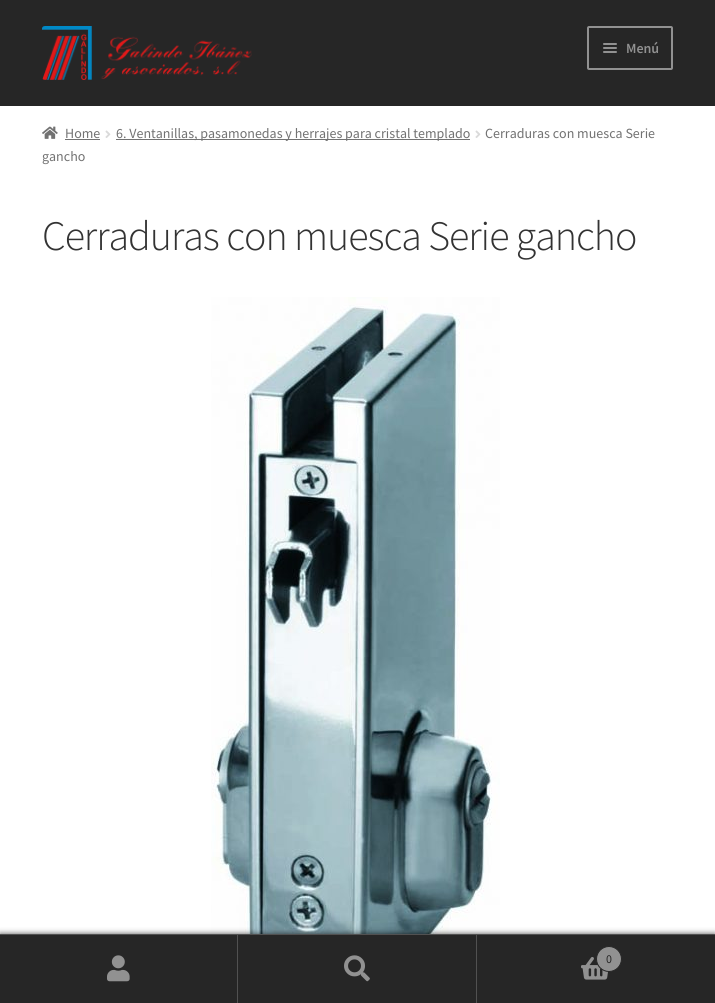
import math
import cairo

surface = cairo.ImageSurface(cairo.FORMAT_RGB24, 715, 1003)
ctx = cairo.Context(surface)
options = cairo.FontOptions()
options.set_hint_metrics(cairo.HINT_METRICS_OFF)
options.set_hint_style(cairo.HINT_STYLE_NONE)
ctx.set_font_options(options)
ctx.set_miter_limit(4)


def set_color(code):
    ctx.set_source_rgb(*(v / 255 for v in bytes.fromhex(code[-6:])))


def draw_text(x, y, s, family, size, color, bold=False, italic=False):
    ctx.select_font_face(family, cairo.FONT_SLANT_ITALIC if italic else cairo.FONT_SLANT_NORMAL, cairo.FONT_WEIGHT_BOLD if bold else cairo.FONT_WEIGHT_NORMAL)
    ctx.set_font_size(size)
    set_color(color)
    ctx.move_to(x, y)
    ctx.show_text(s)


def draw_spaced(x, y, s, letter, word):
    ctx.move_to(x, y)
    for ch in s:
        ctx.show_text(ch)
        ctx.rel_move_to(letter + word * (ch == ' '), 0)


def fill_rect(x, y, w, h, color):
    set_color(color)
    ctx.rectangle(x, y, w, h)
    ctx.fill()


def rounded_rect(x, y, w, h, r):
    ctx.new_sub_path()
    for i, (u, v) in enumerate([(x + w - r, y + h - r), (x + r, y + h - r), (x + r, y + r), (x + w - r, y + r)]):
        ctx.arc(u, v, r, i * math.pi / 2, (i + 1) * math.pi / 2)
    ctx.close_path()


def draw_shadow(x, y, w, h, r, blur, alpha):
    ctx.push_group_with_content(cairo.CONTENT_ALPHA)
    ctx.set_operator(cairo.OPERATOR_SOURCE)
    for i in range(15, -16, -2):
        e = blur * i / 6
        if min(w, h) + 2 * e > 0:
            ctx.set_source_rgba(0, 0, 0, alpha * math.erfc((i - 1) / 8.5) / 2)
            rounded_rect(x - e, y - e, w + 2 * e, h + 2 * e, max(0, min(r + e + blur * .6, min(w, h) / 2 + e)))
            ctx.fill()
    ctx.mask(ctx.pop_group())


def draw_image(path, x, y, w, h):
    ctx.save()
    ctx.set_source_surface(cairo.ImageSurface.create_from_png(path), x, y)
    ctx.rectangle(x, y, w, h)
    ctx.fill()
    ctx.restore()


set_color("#ffffff")
ctx.paint()
fill_rect(0, 0, 715, 106, "#262626")
draw_image("assets/img1.png", 42, 26, 210, 54)
rounded_rect(588, 27, 84, 42, 1)
set_color("#919191")
ctx.stroke()
rounded_rect(603, 43, 14, 2, 1)
ctx.fill()
rounded_rect(603, 47, 14, 2, 1)
ctx.fill()
draw_text(626, 53, "Menú", "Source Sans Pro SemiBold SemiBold", 14, "#919191")
rounded_rect(603, 51, 14, 2, 1)
ctx.fill()
draw_image("assets/img2.png", 42, 126, 16, 13)
draw_text(65, 138, "Home", "Source Sans Pro", 14, "#727272")
fill_rect(65, 139, 35, 1, "#727272")
draw_image("assets/img3.png", 105, 130, 6, 8)
fill_rect(116, 139, 354, 1, "#727272")
draw_text(116, 138, "6. Ventanillas, pasamonedas y herrajes para cristal templado", "Source Sans Pro", 14, "#727272")
draw_image("assets/img3.png", 475, 130, 6, 8)
draw_text(485, 138, "Cerraduras con muesca Serie", "Source Sans Pro", 14, "#727272")
draw_text(42, 161, "gancho", "Source Sans Pro", 14, "#727272")
ctx.select_font_face("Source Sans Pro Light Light")
ctx.set_font_size(41.9)
set_color("#333333")
draw_spaced(42, 250, "Cerraduras con muesca Serie gancho", -1, 0)
draw_image("assets/img4.png", 211, 297, 289, 637)
set_color("#000000")
draw_shadow(0, 934, 715, 69, 0, 3, 0.7)
fill_rect(0, 934, 715, 1, "#515151")
fill_rect(0, 935, 237, 68, "#262626")
fill_rect(237, 935, 1, 68, "#515151")
draw_image("assets/img5.png", 107, 955, 23, 27)
fill_rect(238, 935, 238, 68, "#262626")
fill_rect(476, 935, 1, 68, "#515151")
draw_image("assets/img6.png", 344, 955, 26, 27)
fill_rect(477, 935, 238, 68, "#262626")
draw_image("assets/img7.png", 581, 957, 28, 23)
set_color("#919191")
ctx.arc(609, 959, 12.5, 0, 2 * math.pi)
ctx.fill_preserve()
set_color("#262626")
ctx.set_line_width(1)
ctx.stroke()
draw_text(606, 963, "0", "Source Sans Pro", 12, "#262626")
surface.write_to_png("output.png")
